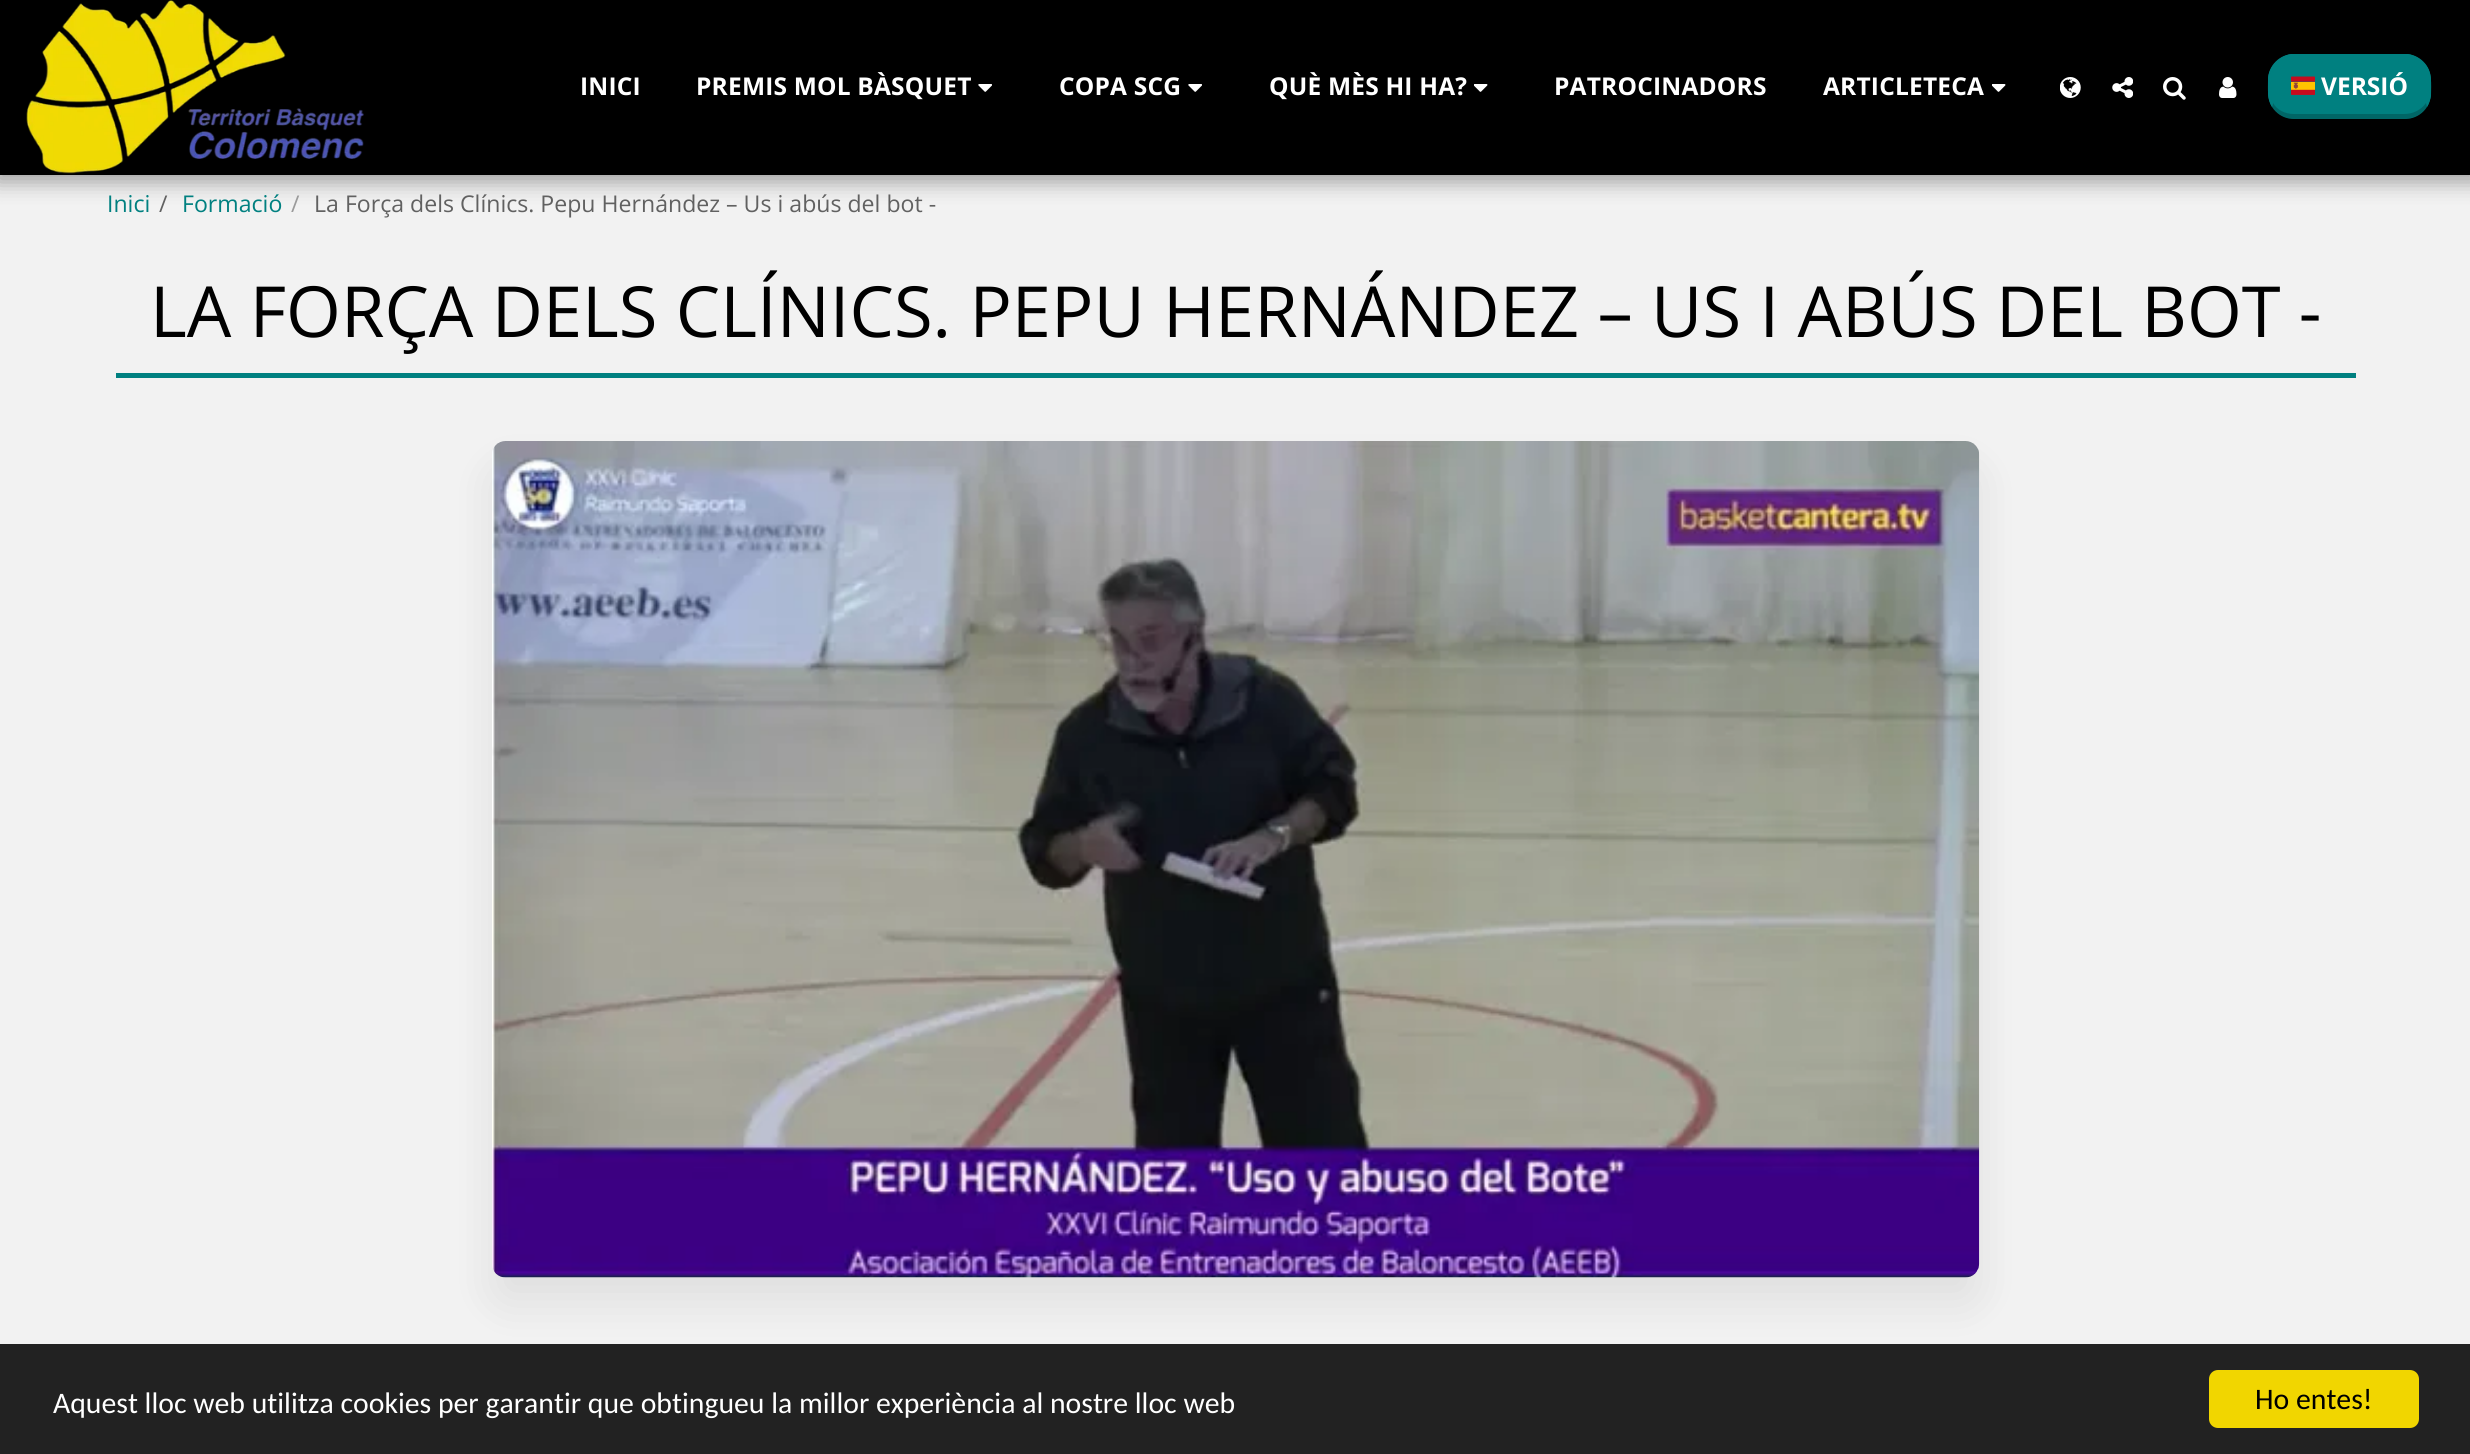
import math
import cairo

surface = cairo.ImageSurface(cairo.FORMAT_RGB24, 2470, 1454)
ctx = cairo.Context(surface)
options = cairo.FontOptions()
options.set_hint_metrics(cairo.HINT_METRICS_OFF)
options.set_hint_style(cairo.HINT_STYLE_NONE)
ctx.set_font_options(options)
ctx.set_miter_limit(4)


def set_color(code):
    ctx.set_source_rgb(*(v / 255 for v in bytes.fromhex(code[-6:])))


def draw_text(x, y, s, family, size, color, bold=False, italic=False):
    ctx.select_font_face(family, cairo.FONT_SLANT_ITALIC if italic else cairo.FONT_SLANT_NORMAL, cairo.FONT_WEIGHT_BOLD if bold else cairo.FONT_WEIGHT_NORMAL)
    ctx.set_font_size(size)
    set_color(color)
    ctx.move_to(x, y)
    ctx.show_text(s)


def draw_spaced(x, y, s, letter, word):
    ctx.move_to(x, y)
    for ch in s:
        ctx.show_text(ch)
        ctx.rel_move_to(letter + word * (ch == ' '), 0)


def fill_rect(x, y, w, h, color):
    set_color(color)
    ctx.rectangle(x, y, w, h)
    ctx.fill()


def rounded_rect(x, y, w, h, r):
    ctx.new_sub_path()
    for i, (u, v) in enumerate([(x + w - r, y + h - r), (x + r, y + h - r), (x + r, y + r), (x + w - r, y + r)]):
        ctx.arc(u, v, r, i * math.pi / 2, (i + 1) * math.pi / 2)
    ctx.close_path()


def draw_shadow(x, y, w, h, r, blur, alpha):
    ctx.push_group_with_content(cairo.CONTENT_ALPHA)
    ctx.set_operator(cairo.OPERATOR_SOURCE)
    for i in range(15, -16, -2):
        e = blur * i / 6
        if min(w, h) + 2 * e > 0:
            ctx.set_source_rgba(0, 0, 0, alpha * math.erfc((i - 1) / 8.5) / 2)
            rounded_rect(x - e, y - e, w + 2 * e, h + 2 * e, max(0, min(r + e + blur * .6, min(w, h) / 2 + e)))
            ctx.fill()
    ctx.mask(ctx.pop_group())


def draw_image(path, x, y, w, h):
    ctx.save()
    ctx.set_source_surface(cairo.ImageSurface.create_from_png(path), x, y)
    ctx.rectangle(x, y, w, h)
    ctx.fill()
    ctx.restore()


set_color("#f2f2f2")
ctx.paint()
set_color("#000000")
draw_shadow(-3, 0, 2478, 182, 0, 10.5, 0.35)
fill_rect(0, 0, 2470, 175, "#000000")
draw_image("assets/img1.png", 26, 0, 338, 174)
ctx.select_font_face("Open Sans", cairo.FONT_SLANT_NORMAL, cairo.FONT_WEIGHT_BOLD)
ctx.set_font_size(24.5)
set_color("#ffffff")
draw_spaced(580, 95, "INICI", 0.2, 0)
draw_spaced(696, 95, "PREMIS MOL BÀSQUET", 0.2, 0)
draw_image("assets/img2.png", 978, 84, 14, 8)
draw_spaced(1059, 95, "COPA SCG", 0.2, 0)
draw_image("assets/img2.png", 1188, 84, 14, 8)
draw_spaced(1269, 95, "QUÈ MÈS HI HA?", 0.2, 0)
draw_image("assets/img3.png", 1474, 84, 14, 8)
draw_spaced(1554, 95, "PATROCINADORS", 0.2, 0)
draw_spaced(1823, 95, "ARTICLETECA", 0.2, 0)
draw_image("assets/img3.png", 1992, 84, 14, 8)
draw_image("assets/img4.png", 2060, 77, 21, 21)
draw_image("assets/img5.png", 2112, 77, 21, 21)
draw_image("assets/img6.png", 2163, 77, 23, 23)
draw_image("assets/img7.png", 2219, 77, 18, 21)
set_color("#008080")
rounded_rect(2268, 54, 163, 65, 26)
ctx.fill()
ctx.new_path()
ctx.move_to(2294, 56)
ctx.curve_to(2287, 56, 2281, 59, 2277, 63)
ctx.line_to(2276, 62)
ctx.curve_to(2280, 58, 2285, 55, 2291, 54)
ctx.line_to(2408, 54)
ctx.curve_to(2414, 55, 2419, 58, 2423, 62)
ctx.line_to(2422, 63)
ctx.curve_to(2417, 59, 2411, 56, 2404, 56)
ctx.close_path()
ctx.fill()
ctx.new_path()
ctx.move_to(2431, 96)
ctx.curve_to(2430, 100, 2429, 104, 2427, 107)
ctx.line_to(2426, 103)
ctx.curve_to(2428, 100, 2429, 97, 2429, 93)
ctx.line_to(2429, 80)
ctx.curve_to(2429, 74, 2426, 68, 2422, 63)
ctx.line_to(2423, 62)
ctx.curve_to(2433, 71, 2431, 84, 2431, 96)
ctx.close_path()
ctx.fill()
ctx.set_source_rgba(0, 0, 0, 0.2)
ctx.new_path()
ctx.move_to(2294, 119)
ctx.line_to(2404, 119)
ctx.curve_to(2414, 119, 2422, 114, 2427, 107)
ctx.line_to(2426, 103)
ctx.curve_to(2421, 110, 2413, 114, 2404, 114)
ctx.line_to(2294, 114)
ctx.curve_to(2285, 114, 2277, 110, 2273, 103)
ctx.line_to(2272, 107)
ctx.curve_to(2277, 114, 2285, 119, 2294, 119)
ctx.close_path()
ctx.fill()
set_color("#008080")
ctx.new_path()
ctx.move_to(2268, 80)
ctx.curve_to(2268, 89, 2267, 99, 2272, 107)
ctx.line_to(2273, 103)
ctx.curve_to(2271, 100, 2270, 97, 2270, 93)
ctx.line_to(2270, 80)
ctx.curve_to(2270, 74, 2273, 68, 2277, 63)
ctx.line_to(2276, 62)
ctx.curve_to(2271, 67, 2268, 73, 2268, 80)
ctx.close_path()
ctx.fill()
draw_image("assets/img8.png", 2291, 76, 24, 19)
draw_text(2321, 95, "VERSIÓ", "Open Sans", 24.5, "#ffffff", bold=True)
draw_text(107, 212, "Inici", "Open Sans", 23.1, "#008080")
draw_text(159, 212, "/", "Open Sans", 23.1, "#616161")
draw_text(182, 212, "Formació", "Open Sans", 23.1, "#008080")
draw_text(291, 212, "/", "Open Sans", 23.1, "#9b9b9b")
draw_text(314, 212, "La Força dels Clínics. Pepu Hernández – Us i abús del bot -", "Open Sans", 23.1, "#616161")
fill_rect(116, 373, 2240, 5, "#008080")
draw_text(150, 337, "LA FORÇA DELS CLÍNICS. PEPU HERNÁNDEZ – US I ABÚS DEL BOT -", "Open Sans", 70.5, "#000000")
set_color("#000000")
draw_shadow(492, 467, 1487, 837, 14, 22, 0.08)
draw_image("assets/img9.png", 492, 441, 1488, 837)
fill_rect(0, 1344, 2470, 110, "#222222")
draw_text(53, 1413, "Aquest lloc web utilitza cookies per garantir que obtingueu la millor experiència al nostre lloc web", "Carlito", 29.75, "#ffffff")
set_color("#f1d600")
rounded_rect(2209, 1370, 210, 58, 9)
ctx.fill()
draw_text(2255, 1409, "Ho entes!", "Carlito", 29.75, "#000000")
surface.write_to_png("output.png")
